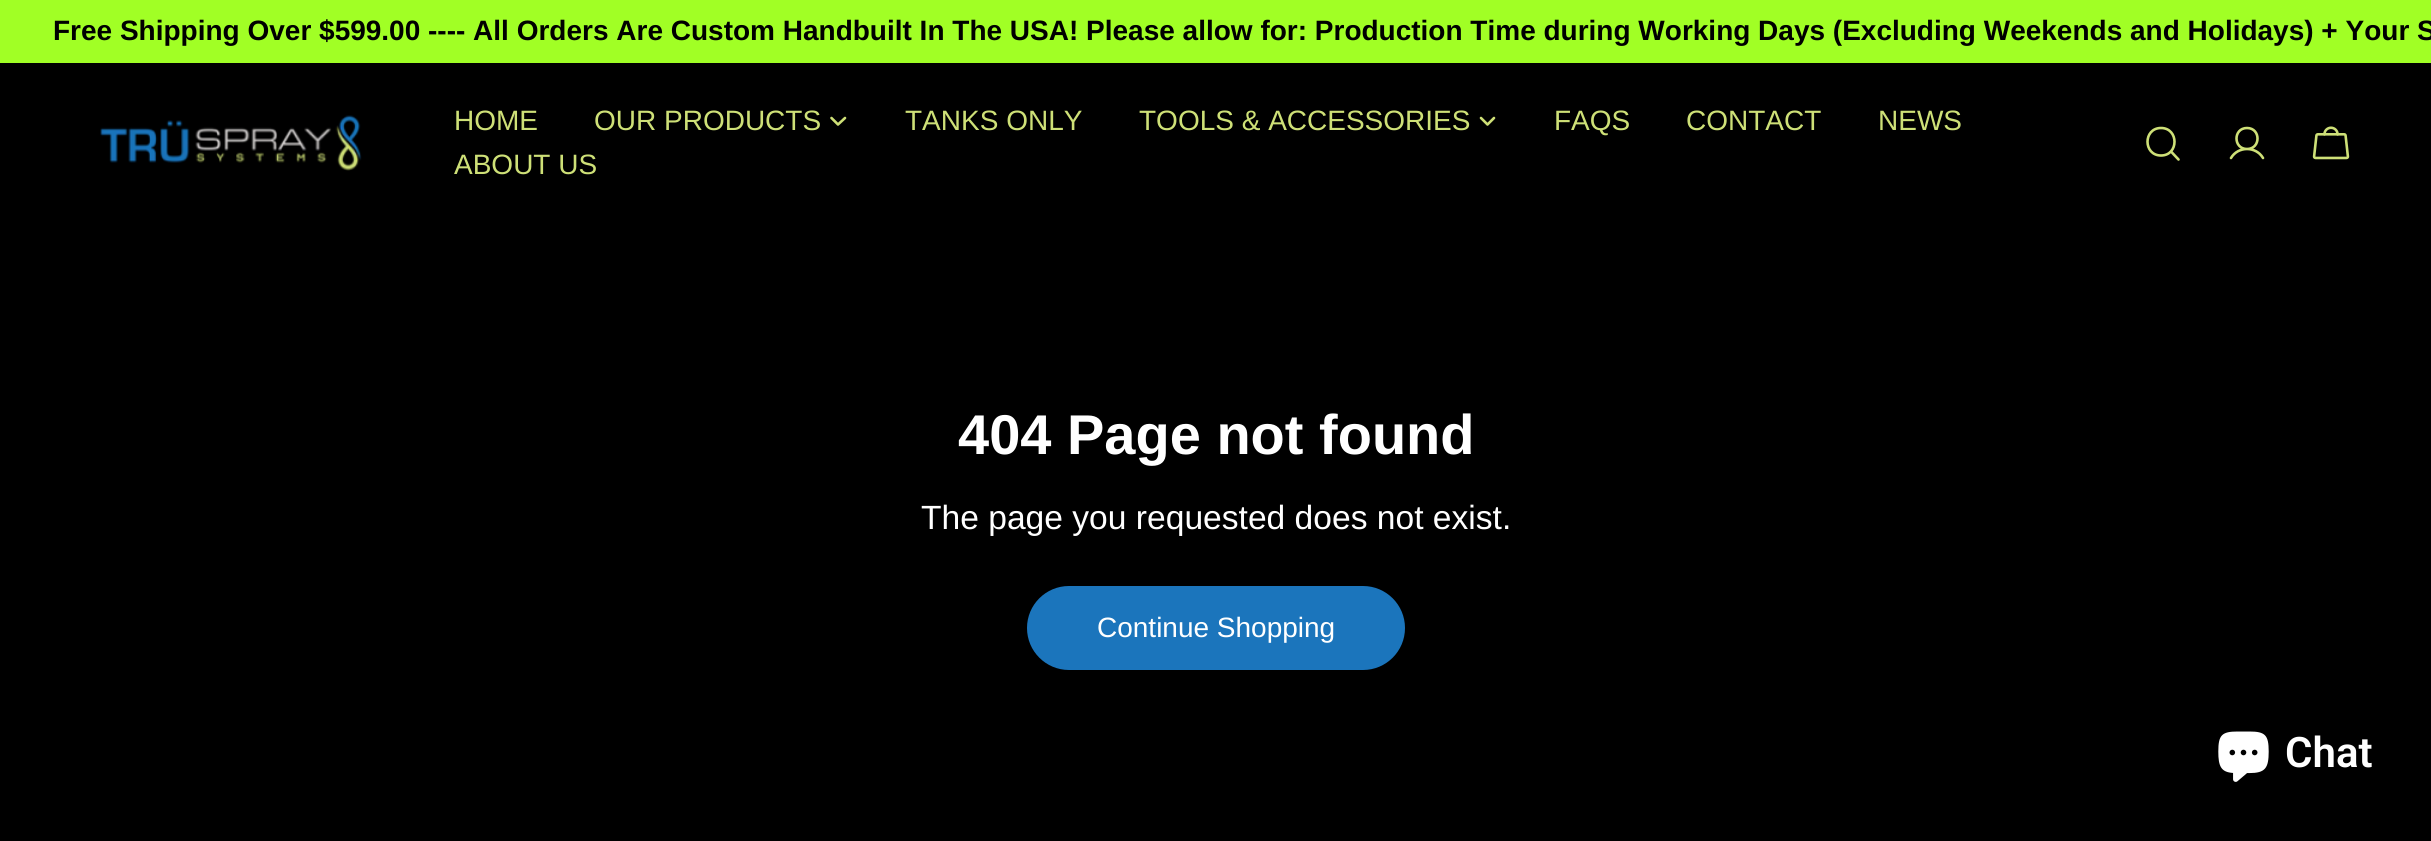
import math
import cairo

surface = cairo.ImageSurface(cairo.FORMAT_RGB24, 2431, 841)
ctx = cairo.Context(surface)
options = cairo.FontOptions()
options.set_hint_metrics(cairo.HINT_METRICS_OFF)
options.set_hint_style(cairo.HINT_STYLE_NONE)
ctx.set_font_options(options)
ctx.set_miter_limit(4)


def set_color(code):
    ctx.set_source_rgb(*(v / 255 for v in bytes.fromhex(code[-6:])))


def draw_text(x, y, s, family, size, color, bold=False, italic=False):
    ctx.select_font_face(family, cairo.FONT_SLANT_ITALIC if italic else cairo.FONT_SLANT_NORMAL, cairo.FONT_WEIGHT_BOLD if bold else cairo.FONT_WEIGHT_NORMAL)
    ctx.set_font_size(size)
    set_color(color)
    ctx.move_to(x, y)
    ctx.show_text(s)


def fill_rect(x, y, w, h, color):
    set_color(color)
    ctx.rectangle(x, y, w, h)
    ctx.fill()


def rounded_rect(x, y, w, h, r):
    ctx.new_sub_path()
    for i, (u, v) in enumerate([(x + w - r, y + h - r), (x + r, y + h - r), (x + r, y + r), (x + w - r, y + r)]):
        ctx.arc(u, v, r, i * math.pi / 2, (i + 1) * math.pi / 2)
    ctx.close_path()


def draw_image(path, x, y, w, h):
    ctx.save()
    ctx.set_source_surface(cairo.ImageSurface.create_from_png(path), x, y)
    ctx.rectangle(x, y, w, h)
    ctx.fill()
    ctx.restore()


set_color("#000000")
ctx.paint()
fill_rect(0, 0, 2431, 63, "#a1ff25")
draw_text(53, 40, "Free Shipping Over $599.00 ---- All Orders Are Custom Handbuilt In The USA! Please allow for: Production Time during Working Days (Excluding Weekends and Holidays) + Your S", "Liberation Sans", 28, "#000000", bold=True)
draw_image("assets/img1.png", 100, 115, 262, 56)
draw_text(454, 130, "HOME", "Liberation Sans", 28, "#cee077")
draw_text(594, 130, "OUR PRODUCTS", "Liberation Sans", 28, "#cee077")
ctx.new_path()
ctx.move_to(845, 118)
ctx.line_to(838, 124.5)
ctx.line_to(831.5, 118)
ctx.set_line_width(2.6)
ctx.set_line_cap(cairo.LINE_CAP_ROUND)
ctx.set_line_join(cairo.LINE_JOIN_ROUND)
ctx.stroke()
draw_text(905, 130, "TANKS ONLY", "Liberation Sans", 28, "#cee077")
draw_text(1139, 130, "TOOLS & ACCESSORIES", "Liberation Sans", 28, "#cee077")
ctx.new_path()
ctx.move_to(1494, 118)
ctx.line_to(1487.5, 124.5)
ctx.line_to(1481, 118)
ctx.stroke()
draw_text(1554, 130, "FAQS", "Liberation Sans", 28, "#cee077")
draw_text(1686, 130, "CONTACT", "Liberation Sans", 28, "#cee077")
draw_text(1878, 130, "NEWS", "Liberation Sans", 28, "#cee077")
draw_text(454, 174, "ABOUT US", "Liberation Sans", 28, "#cee077")
ctx.new_path()
ctx.move_to(2161, 155.5)
ctx.curve_to(2179, 155.5, 2179, 128, 2161, 128)
ctx.curve_to(2143, 128, 2143, 155.5, 2161, 155.5)
ctx.close_path()
ctx.move_to(2171, 151.5)
ctx.line_to(2178.5, 159.5)
ctx.stroke()
ctx.new_path()
ctx.move_to(2247, 149)
ctx.curve_to(2261, 149, 2261, 128, 2247, 128)
ctx.curve_to(2233, 128, 2233, 149, 2247, 149)
ctx.close_path()
ctx.move_to(2231, 158)
ctx.curve_to(2238, 146, 2256, 146, 2263, 158)
ctx.stroke()
draw_image("assets/img2.png", 2312, 126, 38, 34)
draw_text(958, 454, "404 Page not found", "Liberation Sans", 56, "#ffffff", bold=True)
draw_text(921, 529, "The page you requested does not exist.", "Liberation Sans", 33.6, "#ffffff")
set_color("#1b75bc")
rounded_rect(1027, 586, 378, 84, 42)
ctx.fill()
draw_text(1097, 637, "Continue Shopping", "Liberation Sans", 28, "#ffffff")
draw_image("assets/img3.png", 2218, 731, 51, 51)
draw_text(2285, 767, "Chat", "Roboto SemiBold", 42, "#ffffff")
surface.write_to_png("output.png")
